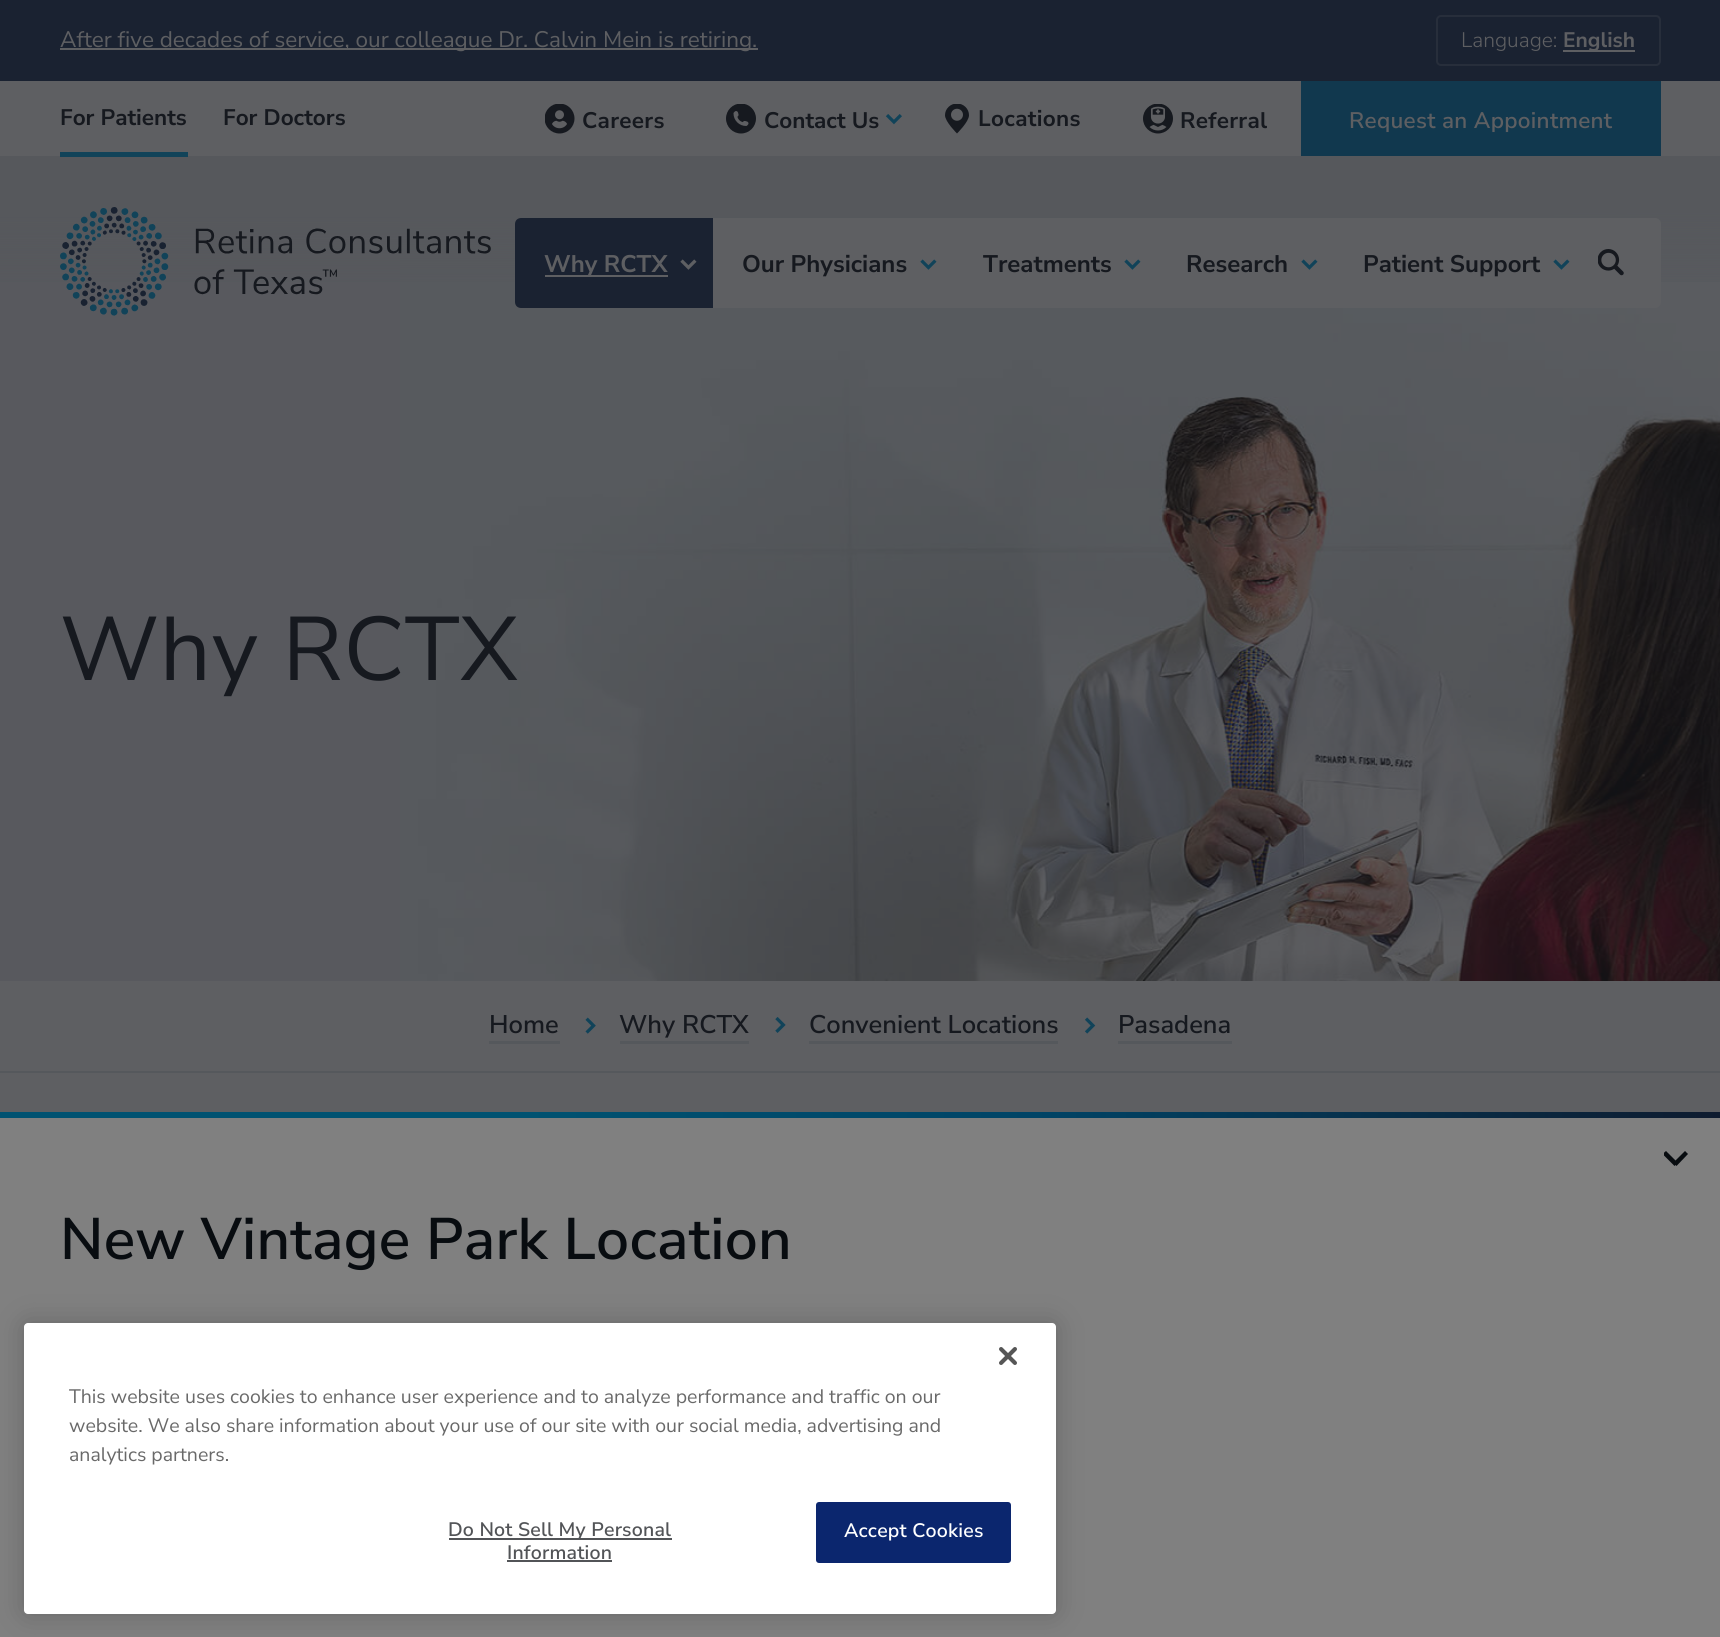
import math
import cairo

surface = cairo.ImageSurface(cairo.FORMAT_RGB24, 1720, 1637)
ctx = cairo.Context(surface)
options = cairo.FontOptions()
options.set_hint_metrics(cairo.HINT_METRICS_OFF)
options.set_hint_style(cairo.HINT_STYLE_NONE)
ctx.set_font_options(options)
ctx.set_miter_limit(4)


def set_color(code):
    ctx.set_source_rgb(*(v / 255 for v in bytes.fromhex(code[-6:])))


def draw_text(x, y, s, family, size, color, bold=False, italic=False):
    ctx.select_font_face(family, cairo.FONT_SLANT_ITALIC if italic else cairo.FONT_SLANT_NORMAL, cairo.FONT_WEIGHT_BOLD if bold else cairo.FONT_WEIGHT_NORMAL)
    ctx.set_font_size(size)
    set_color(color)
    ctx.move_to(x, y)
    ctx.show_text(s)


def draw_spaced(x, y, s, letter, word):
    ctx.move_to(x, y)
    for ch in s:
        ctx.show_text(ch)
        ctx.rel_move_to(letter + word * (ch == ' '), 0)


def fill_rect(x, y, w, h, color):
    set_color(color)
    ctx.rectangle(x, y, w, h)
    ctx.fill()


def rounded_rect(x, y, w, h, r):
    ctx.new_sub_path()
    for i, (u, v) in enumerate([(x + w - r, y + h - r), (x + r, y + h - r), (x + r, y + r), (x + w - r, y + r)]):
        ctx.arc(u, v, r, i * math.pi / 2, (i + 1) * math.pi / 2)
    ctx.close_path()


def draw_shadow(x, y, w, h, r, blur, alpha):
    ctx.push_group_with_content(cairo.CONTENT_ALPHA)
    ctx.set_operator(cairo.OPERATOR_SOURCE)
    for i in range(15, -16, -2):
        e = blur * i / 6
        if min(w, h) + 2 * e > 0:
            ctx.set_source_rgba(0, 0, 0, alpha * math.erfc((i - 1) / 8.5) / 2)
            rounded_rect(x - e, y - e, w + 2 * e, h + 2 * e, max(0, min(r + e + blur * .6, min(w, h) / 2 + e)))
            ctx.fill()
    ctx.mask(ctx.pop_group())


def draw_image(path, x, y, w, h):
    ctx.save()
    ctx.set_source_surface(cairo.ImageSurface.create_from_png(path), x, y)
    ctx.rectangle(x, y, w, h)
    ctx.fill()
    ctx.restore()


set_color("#5e5f62")
ctx.paint()
fill_rect(0, 0, 1720, 81, "#1a2231")
fill_rect(60, 48, 698, 2, "#5e5f62")
draw_text(60, 47, "After five decades of service, our colleague Dr. Calvin Mein is retiring.", "Nunito Sans", 22.5, "#5e5f62")
rounded_rect(1437, 16, 223, 49, 4)
set_color("#272e3b")
ctx.stroke()
draw_text(1461, 47, "Language:", "Nunito Sans Light", 21, "#5e5f62")
fill_rect(1563, 50, 72, 2, "#5e5f62")
draw_text(1563, 47, "English", "Nunito Sans", 21, "#5e5f62", bold=True)
draw_text(60, 125, "For Patients", "Nunito Sans", 22.5, "#16191f", bold=True)
fill_rect(0, 212, 400, 769, "#58595e")
draw_image("assets/img10.png", 400, 212, 1320, 769)
gradient = cairo.LinearGradient(860, 368, 860, 156)
gradient.add_color_stop_rgba(0, 0.337, 0.345, 0.361, 0)
gradient.add_color_stop_rgba(0.74, 0.337, 0.345, 0.361, 1)
ctx.set_source(gradient)
ctx.rectangle(0, 156, 1720, 126)
ctx.fill()
fill_rect(60, 152, 128, 5, "#114359")
draw_text(223, 125, "For Doctors", "Nunito Sans", 22.5, "#16191f", bold=True)
draw_image("assets/img1.png", 545, 104, 30, 30)
draw_spaced(582, 128, "Careers", 0.3, 0)
draw_image("assets/img2.png", 726, 104, 30, 30)
draw_text(764, 128, "Contact Us", "Nunito Sans", 22.5, "#16191f", bold=True)
draw_image("assets/img3.png", 885, 114, 17, 11)
draw_image("assets/img4.png", 945, 104, 24, 30)
draw_spaced(978, 126, "Locations", 0.3, 0)
draw_image("assets/img5.png", 1143, 104, 30, 30)
draw_spaced(1180, 128, "Referral", 0.3, 0)
fill_rect(1301, 81, 360, 75, "#11384e")
ctx.select_font_face("Nunito Sans SemiBold")
set_color("#5e5f62")
draw_spaced(1349, 128, "Request an Appointment", 0.3, 0)
draw_image("assets/img6.png", 60, 207, 431, 109)
rounded_rect(515, 218, 1146, 90, 6)
ctx.fill()
set_color("#1a2231")
ctx.new_path()
ctx.move_to(521, 218)
ctx.line_to(713, 218)
ctx.line_to(713, 308)
ctx.line_to(521, 308)
ctx.curve_to(517.5, 308, 515, 305.5, 515, 302)
ctx.line_to(515, 224)
ctx.curve_to(515, 220.5, 517.5, 218, 521, 218)
ctx.close_path()
ctx.fill()
fill_rect(545, 275, 123, 2, "#5e5f62")
draw_text(544, 272, "Why RCTX", "Nunito Sans", 24, "#5e5f62", bold=True)
draw_image("assets/img7.png", 680, 259, 17, 11)
draw_text(742, 272, "Our Physicians", "Nunito Sans", 24, "#16191f", bold=True)
draw_image("assets/img8.png", 920, 259, 17, 11)
draw_text(983, 272, "Treatments", "Nunito Sans", 24, "#16191f", bold=True)
draw_image("assets/img8.png", 1124, 259, 17, 11)
draw_text(1186, 272, "Research", "Nunito Sans", 24, "#16191f", bold=True)
draw_image("assets/img8.png", 1301, 259, 17, 11)
draw_text(1363, 272, "Patient Support", "Nunito Sans", 24, "#16191f", bold=True)
draw_image("assets/img8.png", 1553, 259, 17, 11)
draw_image("assets/img9.png", 1598, 249, 26, 27)
ctx.select_font_face("Nunito Sans")
ctx.set_font_size(90)
draw_spaced(60, 680, "Why RCTX", 0.75, 0)
draw_text(489, 1033, "Home", "Nunito Sans SemiBold", 25.5, "#16191f")
fill_rect(489, 1041, 71, 3, "#55585c")
draw_image("assets/img11.png", 585, 1017, 11, 17)
draw_text(619, 1033, "Why RCTX", "Nunito Sans SemiBold", 25.5, "#16191f")
fill_rect(620, 1041, 129, 3, "#55585c")
draw_image("assets/img12.png", 775, 1017, 11, 16)
draw_text(809, 1033, "Convenient Locations", "Nunito Sans SemiBold", 25.5, "#16191f")
fill_rect(809, 1041, 249, 3, "#55585c")
draw_image("assets/img13.png", 1085, 1017, 11, 17)
draw_text(1118, 1033, "Pasadena", "Nunito Sans SemiBold", 25.5, "#16191f")
fill_rect(1118, 1041, 114, 3, "#55585c")
fill_rect(0, 1071, 1720, 2, "#55585c")
fill_rect(0, 1118, 1720, 519, "#808080")
gradient = cairo.LinearGradient(0, 1115, 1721, 1115)
gradient.add_color_stop_rgba(0.3, 0, 0.322, 0.443, 1)
gradient.add_color_stop_rgba(0.6, 0, 0.267, 0.4, 1)
gradient.add_color_stop_rgba(1, 0.055, 0.106, 0.184, 1)
ctx.set_source(gradient)
ctx.rectangle(0, 1112, 1720, 6)
ctx.fill()
ctx.save()
ctx.rectangle(1664, 1142, 25, 25)
ctx.clip()
set_color("#080c10")
ctx.set_fill_rule(cairo.FILL_RULE_EVEN_ODD)
ctx.new_path()
ctx.move_to(1676.5, 1166)
ctx.line_to(1688, 1154)
ctx.line_to(1685, 1151)
ctx.line_to(1675.5, 1160.5)
ctx.line_to(1666, 1151)
ctx.line_to(1662.5, 1154)
ctx.line_to(1674.5, 1166)
ctx.line_to(1675.5, 1165)
ctx.close_path()
ctx.fill()
ctx.restore()
ctx.set_font_size(58.5)
set_color("#080c10")
draw_spaced(60, 1259, "New Vintage Park Location", 0.25, 0)
set_color("#000000")
draw_shadow(24, 1323, 1032, 291, 4, 13.5, 0.2)
set_color("#ffffff")
rounded_rect(24, 1323, 1032, 291, 4)
ctx.fill()
draw_image("assets/img14.png", 999, 1347, 18, 18)
draw_text(69, 1403, "This website uses cookies to enhance user experience and to analyze performance and traffic on our", "Nunito Sans", 19.5, "#696969")
draw_text(69, 1432, "website. We also share information about your use of our site with our social media, advertising and", "Nunito Sans", 19.5, "#696969")
draw_text(69, 1461, "analytics partners.", "Nunito Sans", 19.5, "#696969")
fill_rect(449, 1538, 223, 2, "#525457")
ctx.select_font_face("Nunito Sans SemiBold")
draw_spaced(448, 1536, "Do Not Sell My Personal", 0.2, 0)
draw_spaced(507, 1559, "Information", 0.2, 0)
fill_rect(507, 1560, 105, 2, "#525457")
set_color("#0b266e")
rounded_rect(817, 1503, 193, 59, 2)
ctx.fill_preserve()
ctx.stroke()
set_color("#ffffff")
draw_spaced(844, 1537, "Accept Cookies", 0.2, 0)
surface.write_to_png("output.png")
